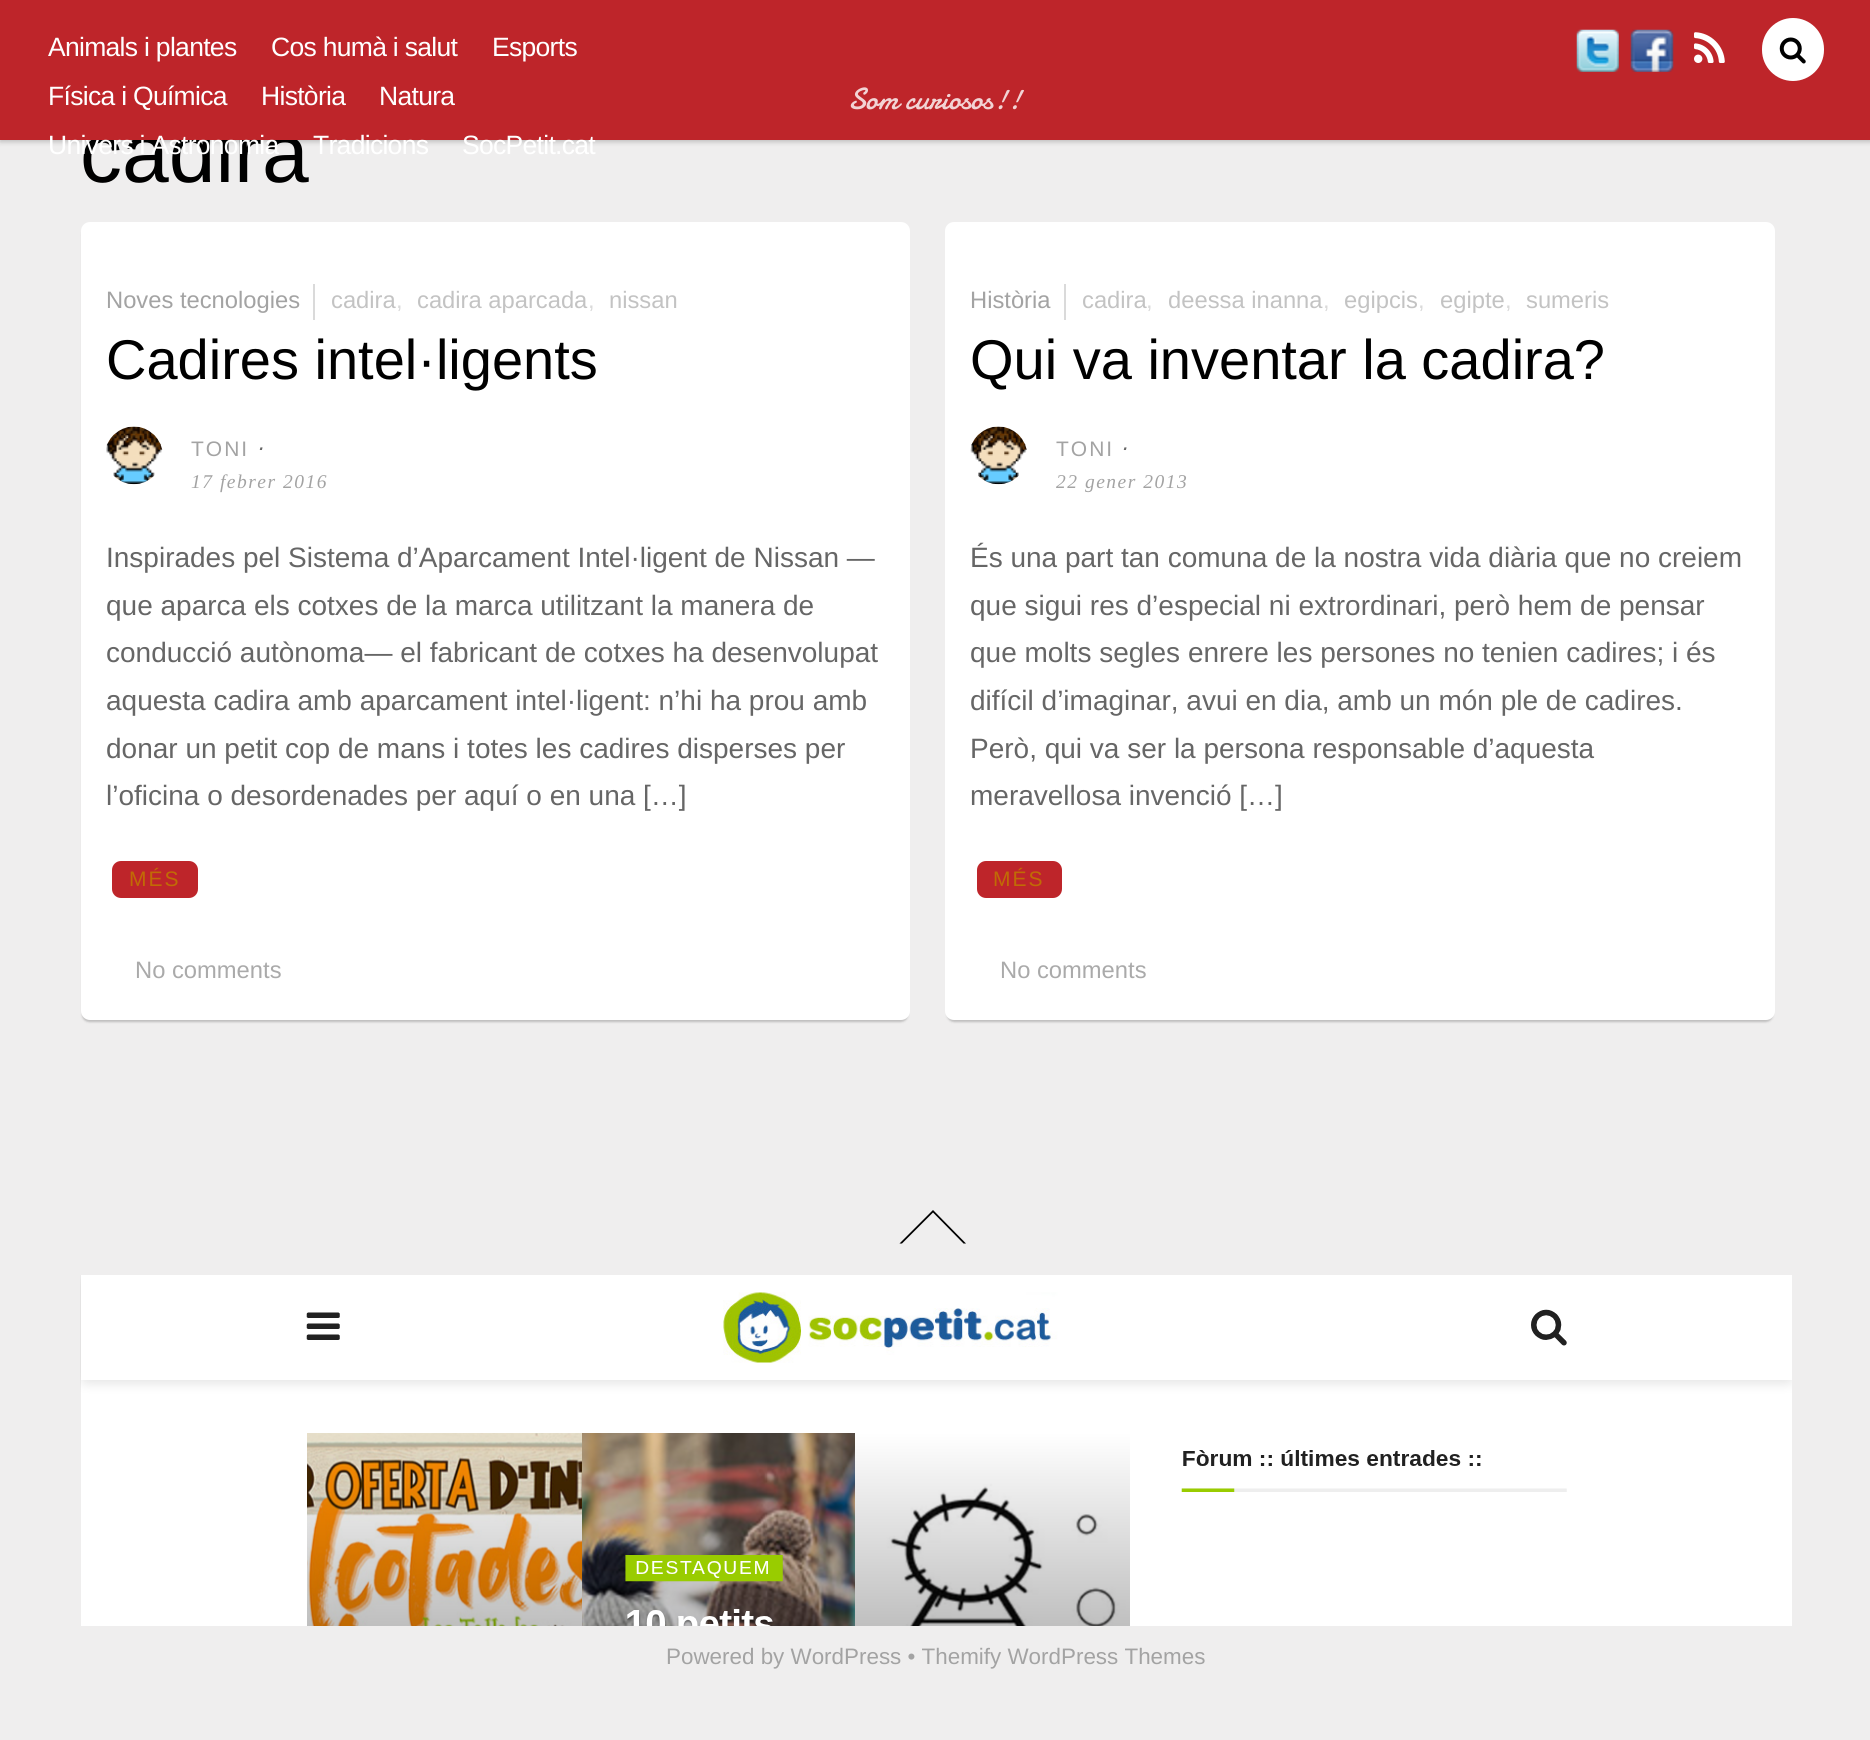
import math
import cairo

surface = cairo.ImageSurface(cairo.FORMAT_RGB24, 1870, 1740)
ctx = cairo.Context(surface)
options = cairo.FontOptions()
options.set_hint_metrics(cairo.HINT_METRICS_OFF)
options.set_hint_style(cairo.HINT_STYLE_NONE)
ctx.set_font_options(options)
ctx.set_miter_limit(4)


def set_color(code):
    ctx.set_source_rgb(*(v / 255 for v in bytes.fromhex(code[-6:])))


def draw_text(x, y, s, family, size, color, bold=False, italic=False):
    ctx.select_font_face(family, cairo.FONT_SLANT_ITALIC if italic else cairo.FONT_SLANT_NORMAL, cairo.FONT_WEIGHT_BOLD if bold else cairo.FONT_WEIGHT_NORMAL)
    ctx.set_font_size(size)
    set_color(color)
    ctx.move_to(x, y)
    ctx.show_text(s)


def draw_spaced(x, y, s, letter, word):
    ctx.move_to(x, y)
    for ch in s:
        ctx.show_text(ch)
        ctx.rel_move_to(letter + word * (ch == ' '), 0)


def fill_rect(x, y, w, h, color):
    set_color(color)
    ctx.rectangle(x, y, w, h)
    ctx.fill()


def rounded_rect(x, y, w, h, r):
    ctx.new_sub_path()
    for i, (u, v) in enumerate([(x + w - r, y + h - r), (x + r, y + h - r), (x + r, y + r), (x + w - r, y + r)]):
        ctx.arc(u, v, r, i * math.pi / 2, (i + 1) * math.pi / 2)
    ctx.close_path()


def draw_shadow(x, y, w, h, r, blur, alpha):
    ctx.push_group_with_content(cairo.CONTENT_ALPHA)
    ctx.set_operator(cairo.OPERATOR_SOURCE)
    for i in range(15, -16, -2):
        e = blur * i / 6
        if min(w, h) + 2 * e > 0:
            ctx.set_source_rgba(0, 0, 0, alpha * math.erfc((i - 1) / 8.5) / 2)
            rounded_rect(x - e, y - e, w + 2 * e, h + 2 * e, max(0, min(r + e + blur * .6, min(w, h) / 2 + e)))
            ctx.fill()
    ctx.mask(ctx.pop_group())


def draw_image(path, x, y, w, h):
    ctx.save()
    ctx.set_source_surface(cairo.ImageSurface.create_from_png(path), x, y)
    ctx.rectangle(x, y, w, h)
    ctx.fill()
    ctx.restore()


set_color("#efeeee")
ctx.paint()
set_color("#000000")
draw_shadow(0, 2, 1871, 140, 0, 2.5, 0.2)
draw_text(80, 182, "cadira", "Liberation Sans", 84, "#000000")
fill_rect(0, 0, 1870, 140, "#be252a")
ctx.set_font_size(26.5)
set_color("#ffffff")
draw_spaced(48, 56, "Animals i plantes", -0.7, 0)
draw_spaced(271, 56, "Cos humà i salut", -0.7, 0)
draw_spaced(492, 56, "Esports", -0.7, 0)
draw_spaced(48, 105, "Física i Química", -0.7, 0)
draw_spaced(261, 105, "Història", -0.7, 0)
draw_spaced(379, 105, "Natura", -0.7, 0)
draw_spaced(48, 154, "Univers i Astronomia", -0.7, 0)
draw_spaced(313, 154, "Tradicions", -0.7, 0)
draw_spaced(462, 154, "SocPetit.cat", -0.7, 0)
draw_text(848, 109, "Som curiosos!!", "Damion", 30.75, "#f2d3d4")
draw_image("assets/img1.png", 1576, 29, 43, 43)
draw_image("assets/img2.png", 1630, 29, 44, 43)
draw_image("assets/img3.png", 1694, 32, 31, 31)
set_color("#ffffff")
rounded_rect(1762, 18, 62, 63, 31)
ctx.fill()
draw_image("assets/img4.png", 1779, 37, 27, 27)
set_color("#000000")
draw_shadow(82, 228, 826, 794, 7, 1, 0.2)
set_color("#ffffff")
rounded_rect(81, 222, 829, 798, 9)
ctx.fill()
draw_text(106, 308, "Noves tecnologies", "Liberation Sans", 23.75, "#a3a3a3")
fill_rect(313, 284, 2, 36, "#dadada")
draw_text(331, 308, "cadira", "Liberation Sans", 23.75, "#c3c3c3")
draw_text(396, 308, ",", "Liberation Sans", 23.75, "#dadada")
draw_text(417, 308, "cadira aparcada", "Liberation Sans", 23.75, "#c3c3c3")
draw_text(588, 308, ",", "Liberation Sans", 23.75, "#dadada")
draw_text(609, 308, "nissan", "Liberation Sans", 23.75, "#c3c3c3")
draw_text(106, 379, "Cadires intel·ligents", "Liberation Sans", 56, "#000000")
draw_image("assets/img5.png", 106, 426, 57, 59)
ctx.set_font_size(21)
set_color("#a3a3a3")
draw_spaced(191, 456, "TONI", 2, 0)
draw_text(256, 456, "⋅", "DejaVu Sans", 21, "#666666", italic=True)
ctx.select_font_face("Liberation Serif", cairo.FONT_SLANT_ITALIC)
ctx.set_font_size(19.5)
set_color("#a3a3a3")
draw_spaced(191, 488, "17 febrer 2016", 1.5, 0)
draw_text(106, 567, "Inspirades pel Sistema d’Aparcament Intel·ligent de Nissan —", "Liberation Sans", 28, "#666666")
draw_text(106, 615, "que aparca els cotxes de la marca utilitzant la manera de", "Liberation Sans", 28, "#666666")
draw_text(106, 662, "conducció autònoma— el fabricant de cotxes ha desenvolupat", "Liberation Sans", 28, "#666666")
draw_text(106, 710, "aquesta cadira amb aparcament intel·ligent: n’hi ha prou amb", "Liberation Sans", 28, "#666666")
draw_text(106, 758, "donar un petit cop de mans i totes les cadires disperses per", "Liberation Sans", 28, "#666666")
draw_text(106, 805, "l’oficina o desordenades per aquí o en una […]", "Liberation Sans", 28, "#666666")
set_color("#be252a")
rounded_rect(112, 861, 86, 37, 9)
ctx.fill()
ctx.set_font_size(21)
set_color("#c16b05")
draw_spaced(129, 886, "MÉS", 2, 0)
draw_text(135, 978, "No comments", "Liberation Sans", 23.75, "#aaaaaa")
set_color("#000000")
draw_shadow(947, 228, 826, 794, 7, 1, 0.2)
set_color("#ffffff")
rounded_rect(945, 222, 830, 798, 9)
ctx.fill()
draw_text(970, 308, "Història", "Liberation Sans", 23.75, "#a3a3a3")
fill_rect(1064, 284, 2, 36, "#dadada")
draw_text(1082, 308, "cadira", "Liberation Sans", 23.75, "#c3c3c3")
draw_text(1146, 308, ",", "Liberation Sans", 23.75, "#dadada")
draw_text(1168, 308, "deessa inanna", "Liberation Sans", 23.75, "#c3c3c3")
draw_text(1323, 308, ",", "Liberation Sans", 23.75, "#dadada")
draw_text(1344, 308, "egipcis", "Liberation Sans", 23.75, "#c3c3c3")
draw_text(1418, 308, ",", "Liberation Sans", 23.75, "#dadada")
draw_text(1440, 308, "egipte", "Liberation Sans", 23.75, "#c3c3c3")
draw_text(1505, 308, ",", "Liberation Sans", 23.75, "#dadada")
draw_text(1526, 308, "sumeris", "Liberation Sans", 23.75, "#c3c3c3")
draw_text(970, 379, "Qui va inventar la cadira?", "Liberation Sans", 56, "#000000")
draw_image("assets/img6.png", 970, 426, 57, 59)
ctx.set_font_size(21)
set_color("#a3a3a3")
draw_spaced(1056, 456, "TONI", 2, 0)
draw_text(1120, 456, "⋅", "DejaVu Sans", 21, "#666666", italic=True)
ctx.select_font_face("Liberation Serif", cairo.FONT_SLANT_ITALIC)
ctx.set_font_size(19.5)
set_color("#a3a3a3")
draw_spaced(1056, 488, "22 gener 2013", 1.5, 0)
draw_text(970, 567, "És una part tan comuna de la nostra vida diària que no creiem", "Liberation Sans", 28, "#666666")
draw_text(970, 615, "que sigui res d’especial ni extrordinari, però hem de pensar", "Liberation Sans", 28, "#666666")
draw_text(970, 662, "que molts segles enrere les persones no tenien cadires; i és", "Liberation Sans", 28, "#666666")
draw_text(970, 710, "difícil d’imaginar, avui en dia, amb un món ple de cadires.", "Liberation Sans", 28, "#666666")
draw_text(970, 758, "Però, qui va ser la persona responsable d’aquesta", "Liberation Sans", 28, "#666666")
draw_text(970, 805, "meravellosa invenció […]", "Liberation Sans", 28, "#666666")
set_color("#be252a")
rounded_rect(977, 861, 85, 37, 9)
ctx.fill()
ctx.set_font_size(21)
set_color("#c16b05")
draw_spaced(993, 886, "MÉS", 2, 0)
draw_text(1000, 978, "No comments", "Liberation Sans", 23.75, "#aaaaaa")
set_color("#000000")
ctx.new_path()
ctx.move_to(933, 1210)
ctx.line_to(966, 1243.5)
ctx.line_to(963.5, 1243.5)
ctx.line_to(933, 1212.5)
ctx.close_path()
ctx.fill()
ctx.new_path()
ctx.move_to(899.5, 1243.5)
ctx.line_to(933, 1210)
ctx.line_to(933, 1212.5)
ctx.line_to(902, 1243.5)
ctx.close_path()
ctx.fill()
draw_image("assets/img7.png", 80, 1275, 1712, 351)
draw_text(666, 1664, "Powered by WordPress • Themify WordPress Themes", "Liberation Sans", 22.4, "#a3a3a3")
surface.write_to_png("output.png")
